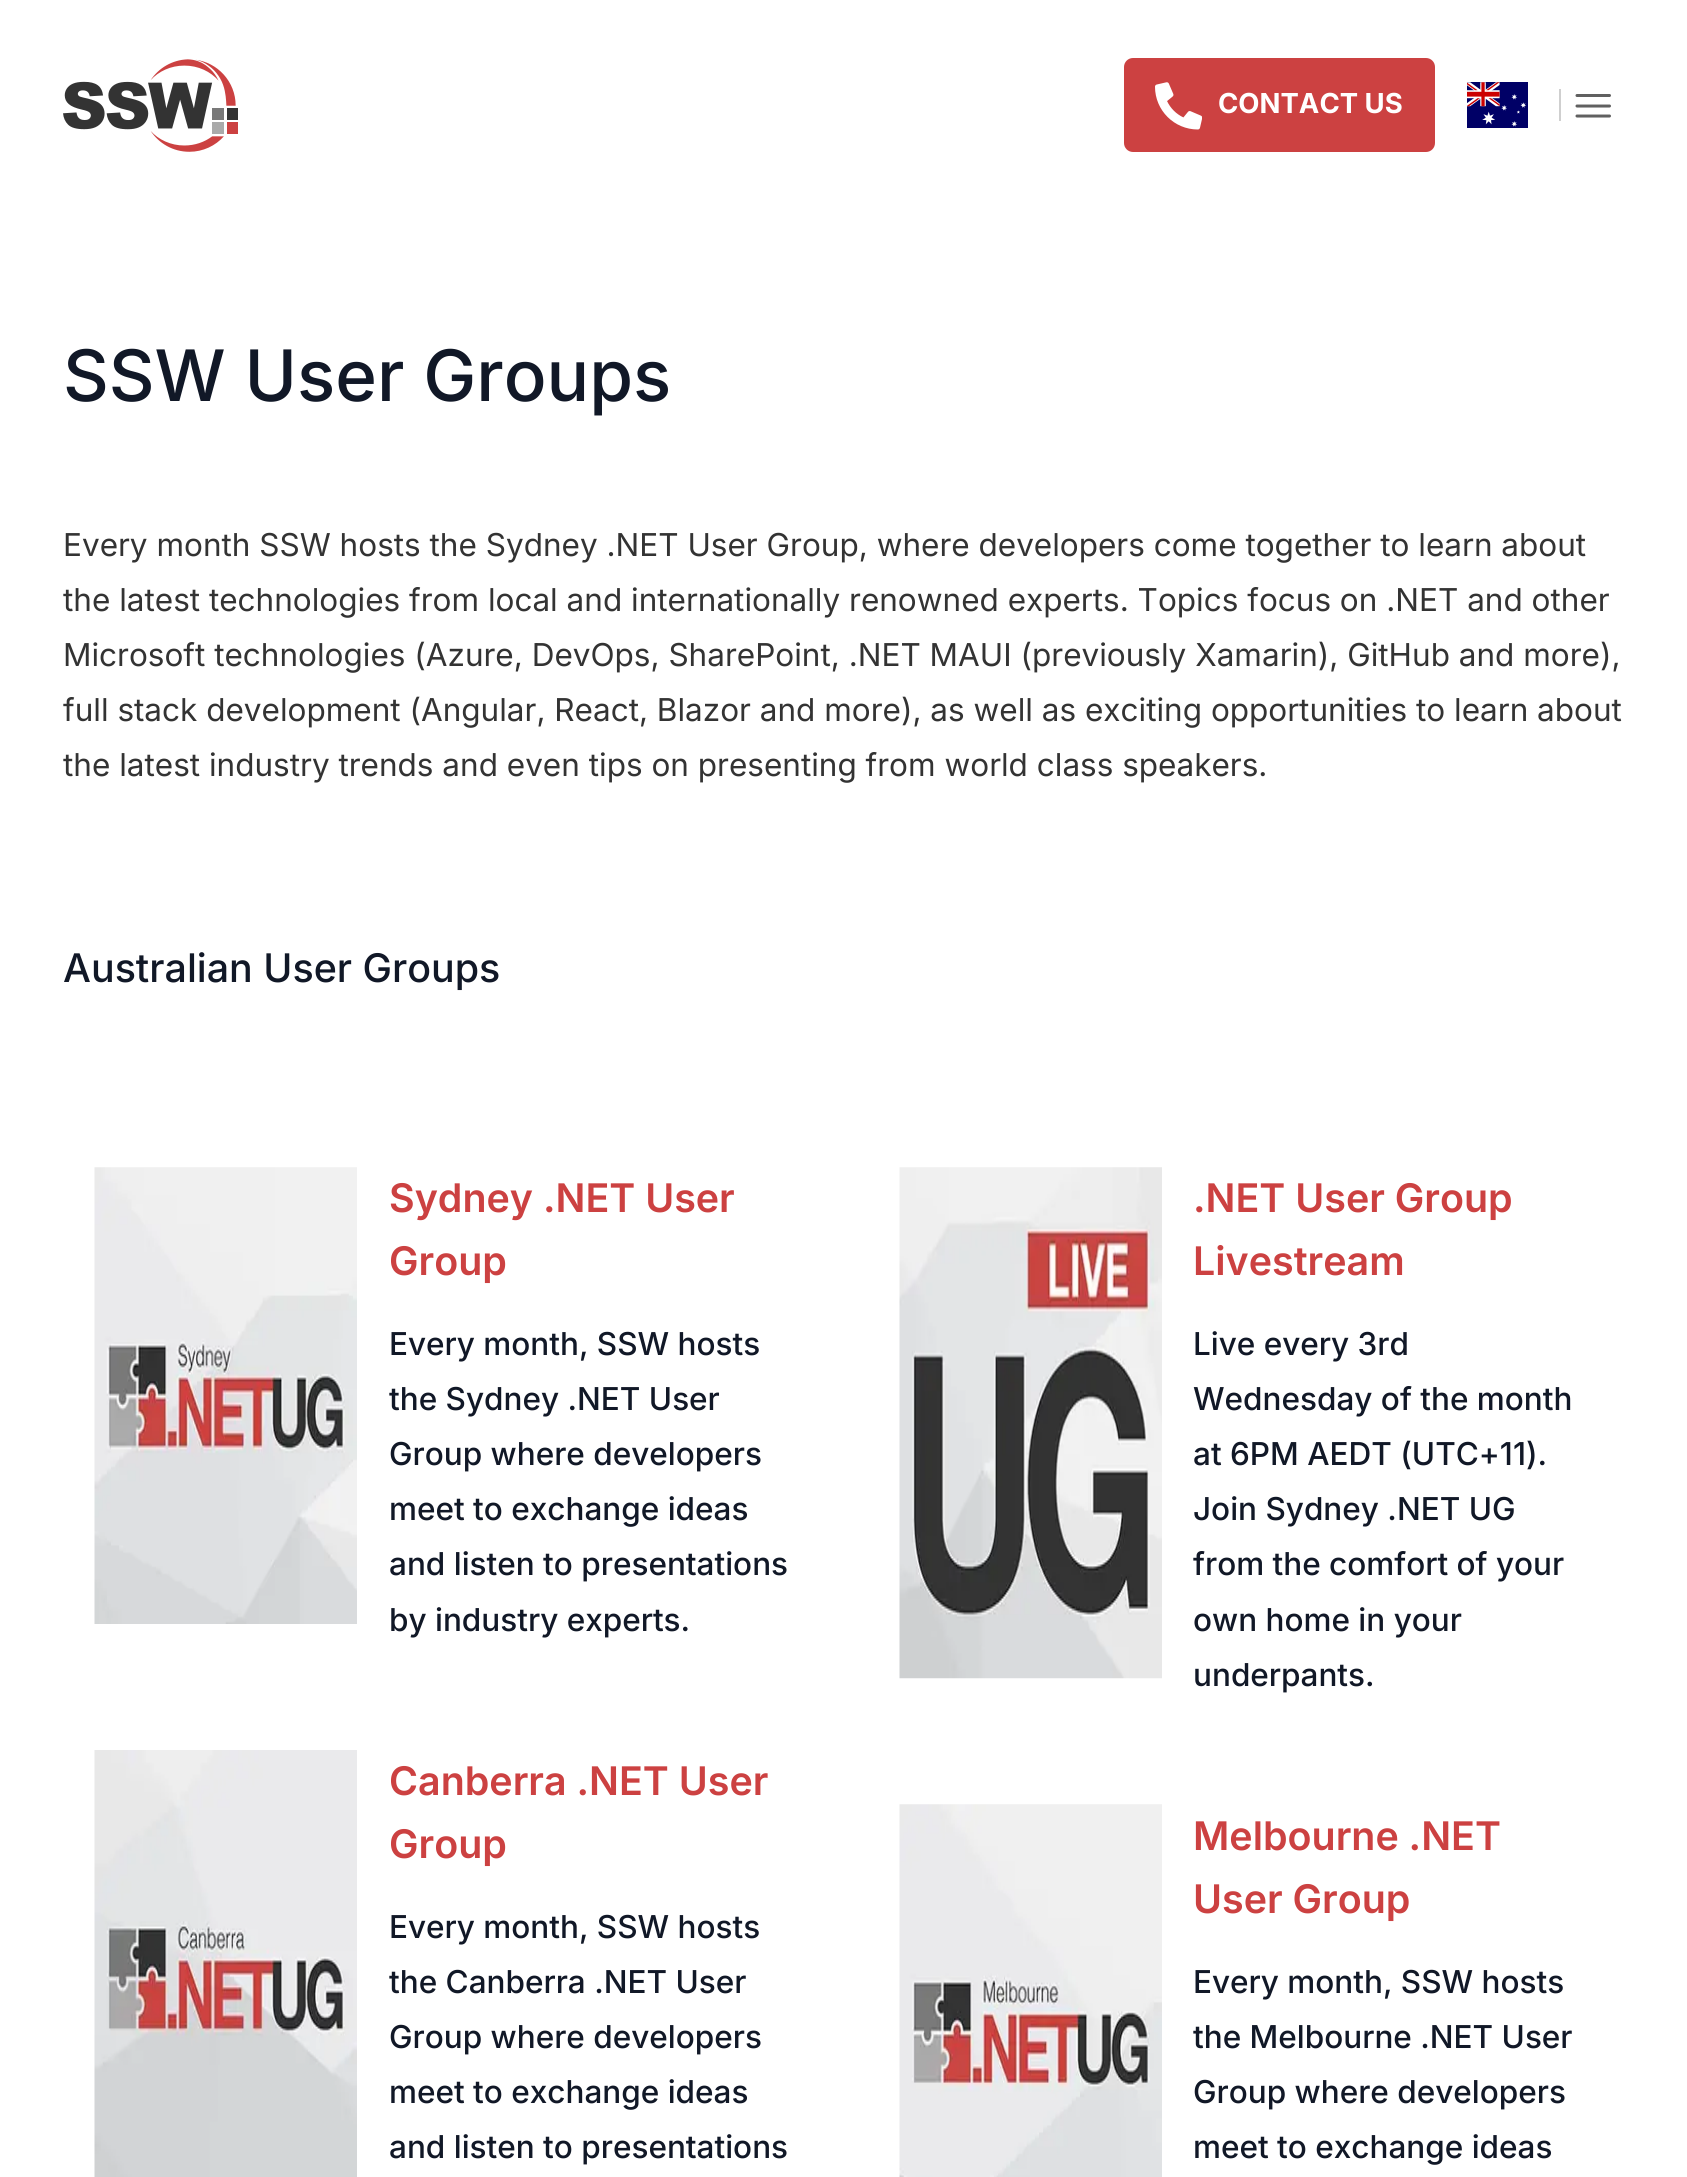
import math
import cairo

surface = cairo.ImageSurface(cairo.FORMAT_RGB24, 1687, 2177)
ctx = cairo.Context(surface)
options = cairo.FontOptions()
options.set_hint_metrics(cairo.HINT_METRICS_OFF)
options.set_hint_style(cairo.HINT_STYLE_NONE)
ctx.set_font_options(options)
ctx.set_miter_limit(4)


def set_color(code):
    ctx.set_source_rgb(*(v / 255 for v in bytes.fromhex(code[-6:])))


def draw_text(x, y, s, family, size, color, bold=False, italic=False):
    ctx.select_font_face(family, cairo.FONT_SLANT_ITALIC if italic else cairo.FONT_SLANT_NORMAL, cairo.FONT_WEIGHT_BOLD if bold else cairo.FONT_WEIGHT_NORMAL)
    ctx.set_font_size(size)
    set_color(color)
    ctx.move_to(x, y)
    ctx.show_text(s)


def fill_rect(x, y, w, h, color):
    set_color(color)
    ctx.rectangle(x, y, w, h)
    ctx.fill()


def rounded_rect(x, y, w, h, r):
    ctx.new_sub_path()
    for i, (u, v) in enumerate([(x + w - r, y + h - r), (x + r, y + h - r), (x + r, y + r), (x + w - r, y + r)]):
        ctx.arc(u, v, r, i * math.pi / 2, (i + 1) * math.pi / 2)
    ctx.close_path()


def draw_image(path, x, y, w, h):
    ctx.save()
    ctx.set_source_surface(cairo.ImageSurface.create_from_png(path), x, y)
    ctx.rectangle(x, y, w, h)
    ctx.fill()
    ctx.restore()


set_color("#ffffff")
ctx.paint()
draw_image("assets/img1.png", 63, 59, 175, 93)
set_color("#cc4141")
rounded_rect(1124, 58, 311, 94, 9)
ctx.fill()
draw_image("assets/img2.png", 1155, 82, 47, 48)
draw_text(1218, 113, "CONTACT US", "Inter", 27.5, "#ffffff", bold=True)
draw_image("assets/img3.png", 1467, 82, 61, 46)
fill_rect(1559, 89, 2, 32, "#cfcfcf")
ctx.new_path()
ctx.move_to(1577, 95.5)
ctx.line_to(1609.5, 95.5)
ctx.move_to(1577, 106)
ctx.line_to(1609.5, 106)
ctx.move_to(1577, 116)
ctx.line_to(1609.5, 116)
set_color("#606060")
ctx.set_line_width(3)
ctx.set_line_cap(cairo.LINE_CAP_ROUND)
ctx.set_line_join(cairo.LINE_JOIN_ROUND)
ctx.stroke()
draw_text(63, 401, "SSW User Groups", "Inter Medium", 70.9, "#111827")
draw_text(63, 556, "Every month SSW hosts the Sydney .NET User Group, where developers come together to learn about", "Inter", 31.5, "#333333")
draw_text(63, 611, "the latest technologies from local and internationally renowned experts. Topics focus on .NET and other", "Inter", 31.5, "#333333")
draw_text(63, 666, "Microsoft technologies (Azure, DevOps, SharePoint, .NET MAUI (previously Xamarin), GitHub and more),", "Inter", 31.5, "#333333")
draw_text(63, 721, "full stack development (Angular, React, Blazor and more), as well as exciting opportunities to learn about", "Inter", 31.5, "#333333")
draw_text(63, 776, "the latest industry trends and even tips on presenting from world class speakers.", "Inter", 31.5, "#333333")
draw_text(63, 982, "Australian User Groups", "Inter Medium", 39.4, "#111827")
draw_image("assets/img4.png", 94, 1167, 263, 457)
draw_text(389, 1212, "Sydney .NET User", "Inter SemiBold", 39.4, "#cc4141")
draw_text(389, 1275, "Group", "Inter SemiBold", 39.4, "#cc4141")
draw_text(389, 1355, "Every month, SSW hosts", "Inter Medium", 31.5, "#111827")
draw_text(389, 1410, "the Sydney .NET User", "Inter Medium", 31.5, "#111827")
draw_text(389, 1465, "Group where developers", "Inter Medium", 31.5, "#111827")
draw_text(389, 1520, "meet to exchange ideas", "Inter Medium", 31.5, "#111827")
draw_text(389, 1575, "and listen to presentations", "Inter Medium", 31.5, "#111827")
draw_text(389, 1631, "by industry experts.", "Inter Medium", 31.5, "#111827")
draw_image("assets/img5.png", 94, 1750, 263, 427)
draw_text(389, 1795, "Canberra .NET User", "Inter SemiBold", 39.4, "#cc4141")
draw_text(389, 1858, "Group", "Inter SemiBold", 39.4, "#cc4141")
draw_text(389, 1938, "Every month, SSW hosts", "Inter Medium", 31.5, "#111827")
draw_text(389, 1993, "the Canberra .NET User", "Inter Medium", 31.5, "#111827")
draw_text(389, 2048, "Group where developers", "Inter Medium", 31.5, "#111827")
draw_text(389, 2103, "meet to exchange ideas", "Inter Medium", 31.5, "#111827")
draw_text(389, 2158, "and listen to presentations", "Inter Medium", 31.5, "#111827")
draw_image("assets/img6.png", 899, 1167, 263, 512)
draw_text(1193, 1212, ".NET User Group", "Inter SemiBold", 39.4, "#cc4141")
draw_text(1193, 1275, "Livestream", "Inter SemiBold", 39.4, "#cc4141")
draw_text(1193, 1355, "Live every 3rd", "Inter Medium", 31.5, "#111827")
draw_text(1193, 1410, "Wednesday of the month", "Inter Medium", 31.5, "#111827")
draw_text(1193, 1465, "at 6PM AEDT (UTC+11).", "Inter Medium", 31.5, "#111827")
draw_text(1193, 1520, "Join Sydney .NET UG", "Inter Medium", 31.5, "#111827")
draw_text(1193, 1575, "from the comfort of your", "Inter Medium", 31.5, "#111827")
draw_text(1193, 1631, "own home in your", "Inter Medium", 31.5, "#111827")
draw_text(1193, 1686, "underpants.", "Inter Medium", 31.5, "#111827")
draw_image("assets/img7.png", 899, 1804, 263, 373)
draw_text(1193, 1850, "Melbourne .NET", "Inter SemiBold", 39.4, "#cc4141")
draw_text(1193, 1913, "User Group", "Inter SemiBold", 39.4, "#cc4141")
draw_text(1193, 1993, "Every month, SSW hosts", "Inter Medium", 31.5, "#111827")
draw_text(1193, 2048, "the Melbourne .NET User", "Inter Medium", 31.5, "#111827")
draw_text(1193, 2103, "Group where developers", "Inter Medium", 31.5, "#111827")
draw_text(1193, 2158, "meet to exchange ideas", "Inter Medium", 31.5, "#111827")
surface.write_to_png("output.png")
